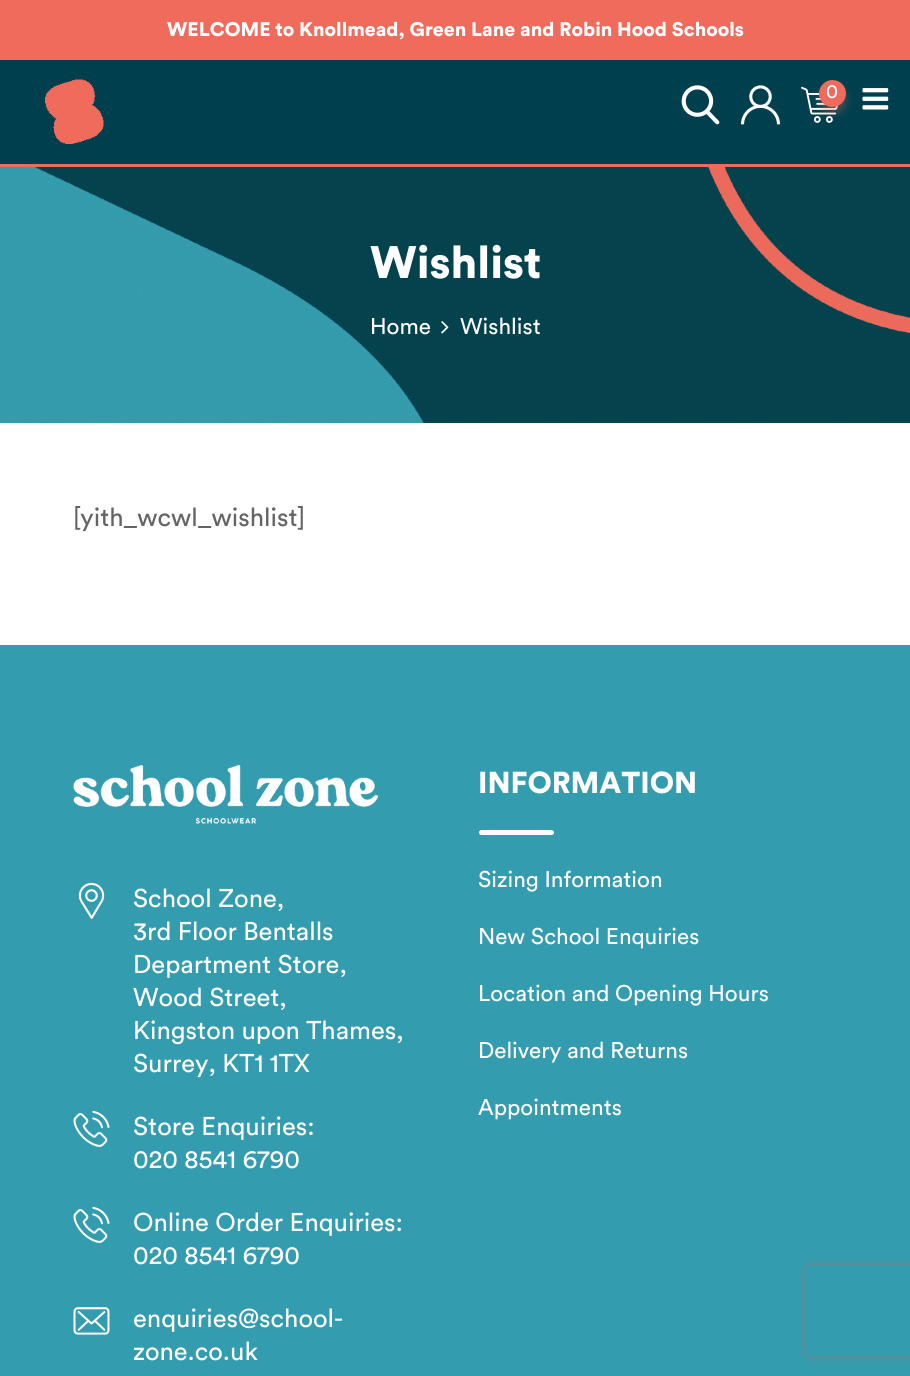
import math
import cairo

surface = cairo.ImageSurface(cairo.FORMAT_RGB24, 910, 1376)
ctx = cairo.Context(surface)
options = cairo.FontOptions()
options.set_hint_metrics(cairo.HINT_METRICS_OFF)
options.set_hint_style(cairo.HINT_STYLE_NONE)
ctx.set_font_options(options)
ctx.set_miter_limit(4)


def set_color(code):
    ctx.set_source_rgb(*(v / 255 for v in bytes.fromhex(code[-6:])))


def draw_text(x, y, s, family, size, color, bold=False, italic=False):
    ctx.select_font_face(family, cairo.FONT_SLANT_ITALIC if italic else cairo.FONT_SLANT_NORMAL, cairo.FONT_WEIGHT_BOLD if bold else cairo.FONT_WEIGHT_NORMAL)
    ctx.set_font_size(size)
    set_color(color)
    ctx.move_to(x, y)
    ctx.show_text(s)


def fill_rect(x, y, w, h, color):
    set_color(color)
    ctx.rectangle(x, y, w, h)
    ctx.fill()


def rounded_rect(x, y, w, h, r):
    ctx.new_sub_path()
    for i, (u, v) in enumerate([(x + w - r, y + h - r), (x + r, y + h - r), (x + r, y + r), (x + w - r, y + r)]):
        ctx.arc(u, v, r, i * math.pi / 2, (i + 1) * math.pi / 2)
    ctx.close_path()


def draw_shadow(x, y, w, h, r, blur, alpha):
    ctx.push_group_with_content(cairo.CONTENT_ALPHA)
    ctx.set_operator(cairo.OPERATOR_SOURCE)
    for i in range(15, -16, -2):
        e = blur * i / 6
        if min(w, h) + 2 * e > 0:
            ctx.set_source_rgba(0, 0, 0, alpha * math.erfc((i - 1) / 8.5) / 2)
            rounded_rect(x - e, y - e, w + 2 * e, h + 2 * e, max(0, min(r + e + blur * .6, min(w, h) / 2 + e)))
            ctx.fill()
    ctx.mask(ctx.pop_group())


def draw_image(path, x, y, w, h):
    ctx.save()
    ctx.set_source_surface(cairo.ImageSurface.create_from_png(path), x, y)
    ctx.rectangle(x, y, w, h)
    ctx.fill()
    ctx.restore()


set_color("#ffffff")
ctx.paint()
fill_rect(0, 0, 910, 60, "#ef6b5c")
draw_text(167, 36, "WELCOME to Knollmead, Green Lane and Robin Hood Schools", "Circular Black", 19.5, "#ffffff")
fill_rect(0, 60, 910, 104, "#003f4e")
fill_rect(0, 164, 910, 3, "#ef6b5c")
draw_image("assets/img1.png", 45, 79, 59, 65)
draw_image("assets/img2.png", 681, 85, 39, 40)
draw_image("assets/img3.png", 741, 85, 39, 40)
draw_image("assets/img4.png", 801, 86, 37, 37)
set_color("#ef6b5c")
draw_shadow(819, 87, 27, 27, 13.5, 4, 0.3)
set_color("#ef6b5c")
ctx.arc(832.5, 93.5, 13.5, 0, 2 * math.pi)
ctx.fill()
draw_text(826, 98, "0", "Circular", 19.5, "#ffffff")
draw_image("assets/img5.png", 862, 88, 27, 22)
draw_image("assets/img6.png", 0, 167, 910, 256)
draw_text(370, 278, "Wishlist", "Circular Black", 45, "#ffffff")
draw_text(370, 334, "Home", "Circular", 22.5, "#ffffff")
draw_image("assets/img7.png", 441, 321, 8, 13)
draw_text(460, 334, "Wishlist", "Circular", 22.5, "#ffffff")
draw_text(73, 526, "[yith_wcwl_wishlist]", "Circular", 25.5, "#646464")
fill_rect(0, 645, 910, 731, "#349caf")
draw_image("assets/img8.png", 73, 765, 305, 59)
draw_image("assets/img9.png", 78, 882, 27, 37)
draw_text(133, 907, "School Zone,", "Circular", 25.5, "#ffffff")
draw_text(133, 940, "3rd Floor Bentalls", "Circular", 25.5, "#ffffff")
draw_text(133, 973, "Department Store,", "Circular", 25.5, "#ffffff")
draw_text(133, 1006, "Wood Street,", "Circular", 25.5, "#ffffff")
draw_text(133, 1039, "Kingston upon Thames,", "Circular", 25.5, "#ffffff")
draw_text(133, 1072, "Surrey, KT1 1TX", "Circular", 25.5, "#ffffff")
draw_image("assets/img10.png", 73, 1110, 37, 37)
draw_text(133, 1135, "Store Enquiries:", "Circular", 25.5, "#ffffff")
draw_text(133, 1168, "020 8541 6790", "Circular", 25.5, "#ffffff")
draw_image("assets/img10.png", 73, 1206, 37, 37)
draw_text(133, 1231, "Online Order Enquiries:", "Circular", 25.5, "#ffffff")
draw_text(133, 1264, "020 8541 6790", "Circular", 25.5, "#ffffff")
draw_image("assets/img11.png", 73, 1307, 37, 28)
draw_text(133, 1327, "enquiries@school-", "Circular", 25.5, "#ffffff")
draw_text(133, 1360, "zone.co.uk", "Circular", 25.5, "#ffffff")
draw_text(478, 793, "INFORMATION", "Circular Black", 30, "#ffffff")
rounded_rect(479, 830, 75, 5, 2.5)
ctx.fill()
draw_text(478, 887, "Sizing Information", "Circular", 22.5, "#ffffff")
draw_text(478, 944, "New School Enquiries", "Circular", 22.5, "#ffffff")
draw_text(478, 1001, "Location and Opening Hours", "Circular", 22.5, "#ffffff")
draw_text(478, 1058, "Delivery and Returns", "Circular", 22.5, "#ffffff")
draw_text(478, 1115, "Appointments", "Circular", 22.5, "#ffffff")
ctx.save()
ctx.set_fill_rule(cairo.FILL_RULE_EVEN_ODD)
ctx.new_path()
ctx.move_to(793, 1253)
ctx.line_to(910, 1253)
ctx.line_to(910, 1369)
ctx.line_to(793, 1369)
ctx.close_path()
ctx.move_to(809, 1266)
ctx.line_to(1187, 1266)
ctx.curve_to(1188.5, 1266, 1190, 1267.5, 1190, 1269)
ctx.line_to(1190, 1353)
ctx.curve_to(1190, 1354.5, 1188.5, 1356, 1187, 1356)
ctx.line_to(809, 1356)
ctx.curve_to(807.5, 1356, 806, 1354.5, 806, 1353)
ctx.line_to(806, 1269)
ctx.curve_to(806, 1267.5, 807.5, 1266, 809, 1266)
ctx.close_path()
ctx.clip()
set_color("#808080")
draw_shadow(806, 1266, 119, 90, 3, 4, 1)
ctx.restore()
surface.write_to_png("output.png")
